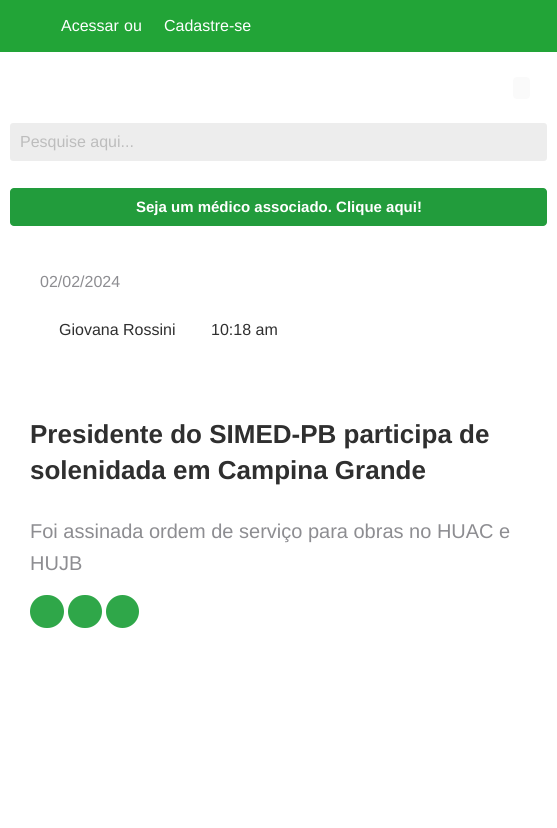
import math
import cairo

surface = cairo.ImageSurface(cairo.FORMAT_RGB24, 557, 828)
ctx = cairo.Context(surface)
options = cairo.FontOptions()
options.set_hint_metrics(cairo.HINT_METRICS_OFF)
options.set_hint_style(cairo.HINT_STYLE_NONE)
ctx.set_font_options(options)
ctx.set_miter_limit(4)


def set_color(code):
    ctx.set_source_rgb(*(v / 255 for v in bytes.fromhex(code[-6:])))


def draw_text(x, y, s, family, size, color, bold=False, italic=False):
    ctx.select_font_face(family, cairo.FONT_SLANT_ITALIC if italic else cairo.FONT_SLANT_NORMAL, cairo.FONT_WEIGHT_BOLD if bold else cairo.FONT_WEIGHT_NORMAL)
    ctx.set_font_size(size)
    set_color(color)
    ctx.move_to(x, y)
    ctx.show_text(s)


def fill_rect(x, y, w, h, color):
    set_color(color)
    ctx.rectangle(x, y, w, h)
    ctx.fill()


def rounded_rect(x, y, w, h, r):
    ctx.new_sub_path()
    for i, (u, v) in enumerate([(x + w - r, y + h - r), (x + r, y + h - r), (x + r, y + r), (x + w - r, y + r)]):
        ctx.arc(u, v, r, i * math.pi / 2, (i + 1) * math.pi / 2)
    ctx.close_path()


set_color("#ffffff")
ctx.paint()
fill_rect(0, 0, 557, 52, "#22a437")
draw_text(61, 31, "Acessar", "Liberation Sans", 16, "#ffffff")
draw_text(124, 31, "ou", "Liberation Sans", 16, "#ffffff")
draw_text(164, 31, "Cadastre-se", "Liberation Sans", 16, "#ffffff")
set_color("#fafafa")
rounded_rect(513, 77, 17, 22, 4)
ctx.fill()
set_color("#ededed")
rounded_rect(10, 123, 537, 38, 3)
ctx.fill()
draw_text(20, 147, "Pesquise aqui...", "Liberation Sans", 16, "#bdbdbd")
set_color("#229c3c")
rounded_rect(10, 188, 537, 38, 4)
ctx.fill()
draw_text(136, 212, "Seja um médico associado. Clique aqui!", "Liberation Sans", 15, "#ffffff", bold=True)
draw_text(40, 287, "02/02/2024", "Liberation Sans", 16, "#8d8d91")
draw_text(59, 335, "Giovana Rossini", "Liberation Sans", 16, "#2f2f2f")
draw_text(211, 335, "10:18 am", "Liberation Sans", 16, "#2f2f2f")
draw_text(30, 443, "Presidente do SIMED-PB participa de", "Liberation Sans", 26, "#2f2f2f", bold=True)
draw_text(30, 479, "solenidada em Campina Grande", "Liberation Sans", 26, "#2f2f2f", bold=True)
draw_text(30, 538, "Foi assinada ordem de serviço para obras no HUAC e", "Liberation Sans", 20, "#8d8d91")
draw_text(30, 570, "HUJB", "Liberation Sans", 20, "#8d8d91")
set_color("#2fa749")
rounded_rect(30, 595, 34, 33, 16.5)
ctx.fill()
rounded_rect(68, 595, 34, 33, 16.5)
ctx.fill()
ctx.arc(122.5, 611.5, 16.5, 0, 2 * math.pi)
ctx.fill()
surface.write_to_png("output.png")
